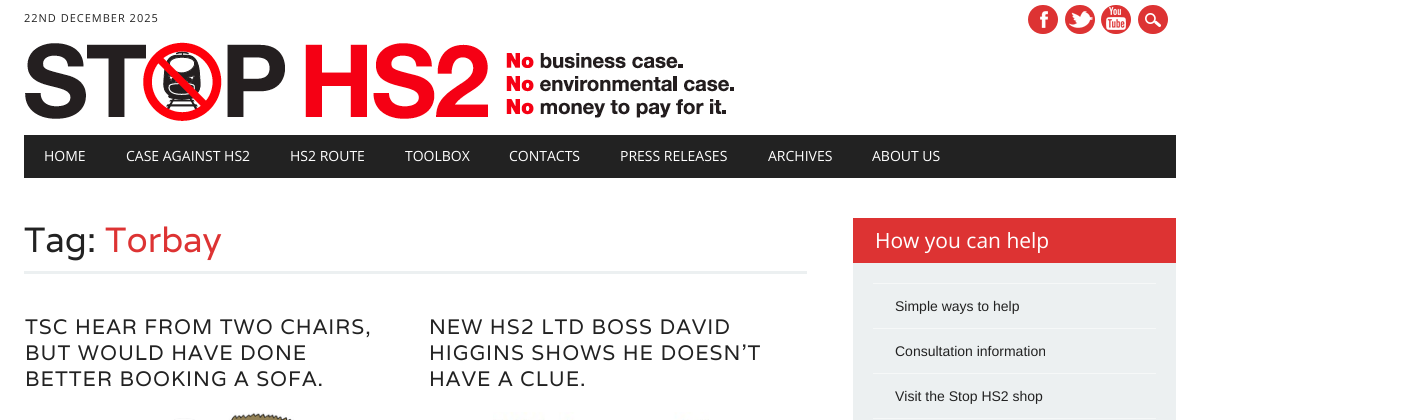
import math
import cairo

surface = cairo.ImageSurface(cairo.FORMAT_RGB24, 1406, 420)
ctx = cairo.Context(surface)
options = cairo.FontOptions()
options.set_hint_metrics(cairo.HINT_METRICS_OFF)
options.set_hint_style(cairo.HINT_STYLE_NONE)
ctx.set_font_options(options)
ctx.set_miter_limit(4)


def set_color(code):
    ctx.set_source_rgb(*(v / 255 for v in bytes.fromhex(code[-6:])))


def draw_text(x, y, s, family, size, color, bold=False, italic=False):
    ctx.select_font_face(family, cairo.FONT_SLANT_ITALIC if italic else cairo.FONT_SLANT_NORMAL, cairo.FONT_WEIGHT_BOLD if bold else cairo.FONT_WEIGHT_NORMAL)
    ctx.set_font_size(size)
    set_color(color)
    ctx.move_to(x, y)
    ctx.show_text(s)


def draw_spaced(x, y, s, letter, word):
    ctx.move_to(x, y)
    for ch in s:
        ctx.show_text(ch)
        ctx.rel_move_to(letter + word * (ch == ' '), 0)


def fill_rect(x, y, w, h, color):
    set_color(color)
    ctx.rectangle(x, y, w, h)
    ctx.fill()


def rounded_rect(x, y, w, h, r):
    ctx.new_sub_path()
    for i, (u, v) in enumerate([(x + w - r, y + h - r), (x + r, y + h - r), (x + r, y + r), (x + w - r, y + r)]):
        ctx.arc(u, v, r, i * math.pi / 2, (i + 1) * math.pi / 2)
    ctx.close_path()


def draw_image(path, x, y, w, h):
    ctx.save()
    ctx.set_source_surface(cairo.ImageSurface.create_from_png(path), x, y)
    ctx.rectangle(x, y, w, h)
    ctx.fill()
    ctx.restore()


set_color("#ffffff")
ctx.paint()
ctx.select_font_face("Open Sans")
ctx.set_font_size(11)
set_color("#222222")
draw_spaced(24, 22, "22ND DECEMBER 2025", 1, 0)
set_color("#dd3333")
rounded_rect(1028, 5, 30, 29, 14.5)
ctx.fill()
draw_image("assets/img1.png", 1040, 11, 8, 17)
rounded_rect(1065, 5, 30, 29, 14.5)
ctx.fill()
draw_image("assets/img2.png", 1069, 11, 24, 17)
rounded_rect(1101, 5, 30, 29, 14.5)
ctx.fill()
draw_image("assets/img3.png", 1106, 7, 20, 23)
rounded_rect(1138, 5, 30, 29, 14.5)
ctx.fill()
draw_image("assets/img4.png", 1145, 13, 16, 14)
draw_image("assets/img5.png", 25, 42, 709, 79)
fill_rect(24, 135, 1152, 43, "#222222")
draw_text(44, 161, "HOME", "Open Sans", 14, "#ffffff")
draw_text(126, 161, "CASE AGAINST HS2", "Open Sans", 14, "#ffffff")
draw_text(290, 161, "HS2 ROUTE", "Open Sans", 14, "#ffffff")
draw_text(405, 161, "TOOLBOX", "Open Sans", 14, "#ffffff")
draw_text(509, 161, "CONTACTS", "Open Sans", 14, "#ffffff")
draw_text(620, 161, "PRESS RELEASES", "Open Sans", 14, "#ffffff")
draw_text(768, 161, "ARCHIVES", "Open Sans", 14, "#ffffff")
draw_text(872, 161, "ABOUT US", "Open Sans", 14, "#ffffff")
fill_rect(24, 271, 783, 3, "#ecf0f1")
draw_text(24, 252, "Tag:", "Varela", 35, "#222222")
draw_text(105, 252, "Torbay", "Varela", 35, "#dd3333")
ctx.set_font_size(21)
set_color("#222222")
draw_spaced(25, 334, "TSC HEAR FROM TWO CHAIRS,", 1, 0)
draw_spaced(25, 360, "BUT WOULD HAVE DONE", 1, 0)
draw_spaced(25, 386, "BETTER BOOKING A SOFA.", 1, 0)
draw_image("assets/img6.png", 174, 412, 120, 8)
draw_spaced(429, 334, "NEW HS2 LTD BOSS DAVID", 1, 0)
draw_spaced(429, 360, "HIGGINS SHOWS HE DOESN’T", 1, 0)
draw_spaced(429, 386, "HAVE A CLUE.", 1, 0)
draw_image("assets/img7.png", 493, 412, 216, 8)
fill_rect(853, 263, 323, 157, "#ecf0f1")
fill_rect(853, 218, 323, 45, "#dd3333")
draw_text(875, 248, "How you can help", "Open Sans", 21, "#ffffff")
fill_rect(873, 283, 283, 1, "#f6f8f8")
draw_text(895, 311, "Simple ways to help", "Liberation Sans", 14, "#222222")
fill_rect(873, 328, 283, 1, "#f6f8f8")
draw_text(895, 356, "Consultation information", "Liberation Sans", 14, "#222222")
fill_rect(873, 373, 283, 1, "#f6f8f8")
draw_text(895, 401, "Visit the Stop HS2 shop", "Liberation Sans", 14, "#222222")
fill_rect(873, 418, 283, 1, "#f6f8f8")
surface.write_to_png("output.png")
